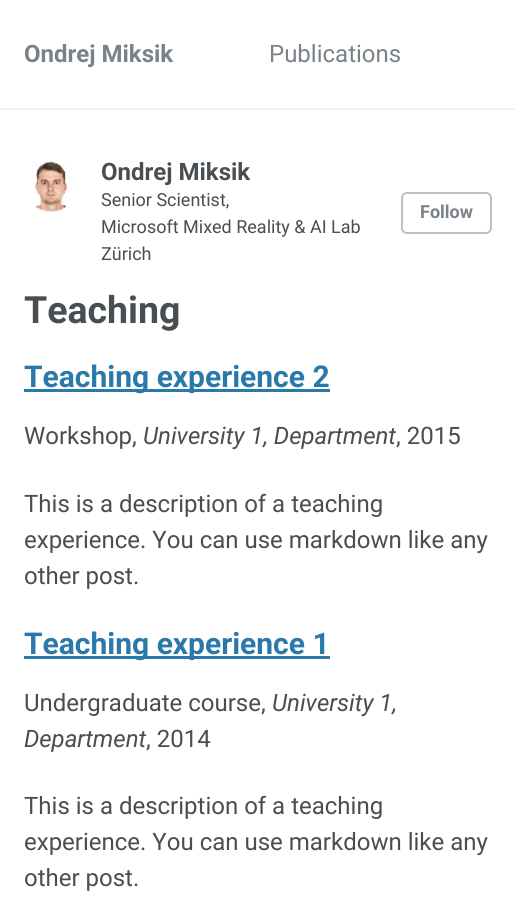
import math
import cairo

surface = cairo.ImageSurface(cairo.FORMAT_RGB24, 515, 905)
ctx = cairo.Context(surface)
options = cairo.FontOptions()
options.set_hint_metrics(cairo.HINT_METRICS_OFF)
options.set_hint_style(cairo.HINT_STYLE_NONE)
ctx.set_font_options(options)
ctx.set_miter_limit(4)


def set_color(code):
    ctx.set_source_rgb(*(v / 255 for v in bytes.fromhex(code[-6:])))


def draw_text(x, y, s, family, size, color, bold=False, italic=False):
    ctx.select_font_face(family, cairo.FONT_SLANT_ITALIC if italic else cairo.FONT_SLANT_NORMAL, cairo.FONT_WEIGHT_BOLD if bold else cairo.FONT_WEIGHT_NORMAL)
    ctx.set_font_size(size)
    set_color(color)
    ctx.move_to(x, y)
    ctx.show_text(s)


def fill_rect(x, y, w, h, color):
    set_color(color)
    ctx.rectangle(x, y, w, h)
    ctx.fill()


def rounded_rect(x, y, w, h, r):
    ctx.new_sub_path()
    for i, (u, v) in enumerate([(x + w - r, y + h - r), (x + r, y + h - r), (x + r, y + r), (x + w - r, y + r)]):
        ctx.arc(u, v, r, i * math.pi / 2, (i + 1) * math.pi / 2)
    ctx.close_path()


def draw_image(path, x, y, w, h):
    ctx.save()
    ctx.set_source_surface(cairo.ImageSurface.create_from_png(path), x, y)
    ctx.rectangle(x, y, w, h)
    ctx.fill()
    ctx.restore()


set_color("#ffffff")
ctx.paint()
fill_rect(0, 108, 515, 2, "#f2f3f3")
draw_text(24, 62, "Ondrej Miksik", "Roboto", 24, "#7a8288", bold=True)
draw_text(269, 62, "Publications", "Roboto", 24, "#7a8288")
draw_image("assets/img1.png", 35, 161, 32, 51)
draw_text(101, 180, "Ondrej Miksik", "Roboto", 24, "#494e52", bold=True)
draw_text(101, 206, "Senior Scientist,", "Roboto", 18, "#494e52")
draw_text(101, 233, "Microsoft Mixed Reality & AI Lab", "Roboto", 18, "#494e52")
draw_text(101, 260, "Zürich", "Roboto", 18, "#494e52")
rounded_rect(402, 193, 89, 40, 5)
set_color("#bdc1c4")
ctx.stroke()
draw_text(420, 218, "Follow", "Roboto", 18, "#7a8288", bold=True)
draw_text(24, 323, "Teaching", "Roboto", 37.5, "#494e52", bold=True)
fill_rect(24, 389, 306, 3, "#2979ab")
draw_text(24, 387, "Teaching experience 2", "Roboto", 30, "#2979ab", bold=True)
draw_text(24, 444, "Workshop,", "Roboto", 24, "#494e52")
draw_text(143, 444, "University 1, Department", "Roboto", 24, "#494e52", italic=True)
draw_text(396, 444, ", 2015", "Roboto", 24, "#494e52")
draw_text(24, 512, "This is a description of a teaching", "Roboto", 24, "#494e52")
draw_text(24, 548, "experience. You can use markdown like any", "Roboto", 24, "#494e52")
draw_text(24, 584, "other post.", "Roboto", 24, "#494e52")
fill_rect(24, 656, 306, 3, "#2979ab")
draw_text(24, 654, "Teaching experience 1", "Roboto", 30, "#2979ab", bold=True)
draw_text(24, 711, "Undergraduate course,", "Roboto", 24, "#494e52")
draw_text(272, 711, "University 1,", "Roboto", 24, "#494e52", italic=True)
draw_text(24, 747, "Department", "Roboto", 24, "#494e52", italic=True)
draw_text(146, 747, ", 2014", "Roboto", 24, "#494e52")
draw_text(24, 814, "This is a description of a teaching", "Roboto", 24, "#494e52")
draw_text(24, 850, "experience. You can use markdown like any", "Roboto", 24, "#494e52")
draw_text(24, 886, "other post.", "Roboto", 24, "#494e52")
surface.write_to_png("output.png")
